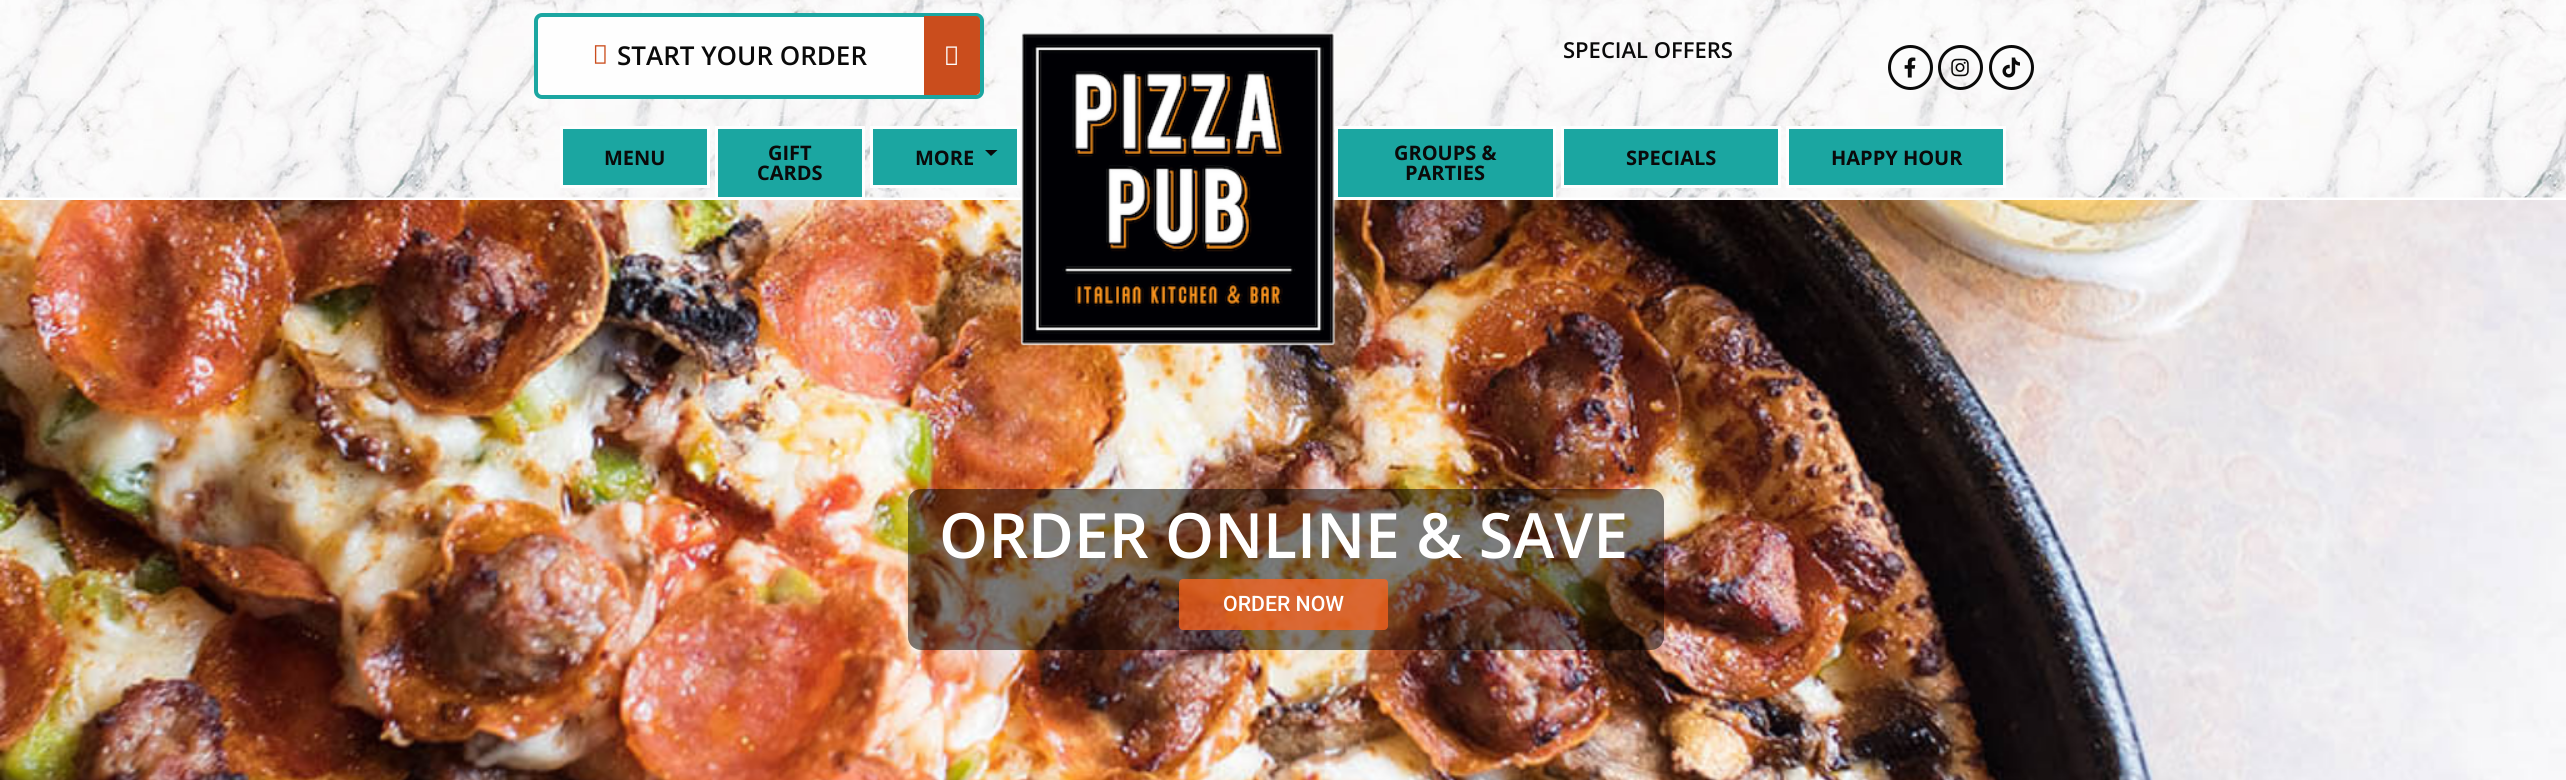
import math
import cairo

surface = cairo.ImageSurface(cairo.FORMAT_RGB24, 2566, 780)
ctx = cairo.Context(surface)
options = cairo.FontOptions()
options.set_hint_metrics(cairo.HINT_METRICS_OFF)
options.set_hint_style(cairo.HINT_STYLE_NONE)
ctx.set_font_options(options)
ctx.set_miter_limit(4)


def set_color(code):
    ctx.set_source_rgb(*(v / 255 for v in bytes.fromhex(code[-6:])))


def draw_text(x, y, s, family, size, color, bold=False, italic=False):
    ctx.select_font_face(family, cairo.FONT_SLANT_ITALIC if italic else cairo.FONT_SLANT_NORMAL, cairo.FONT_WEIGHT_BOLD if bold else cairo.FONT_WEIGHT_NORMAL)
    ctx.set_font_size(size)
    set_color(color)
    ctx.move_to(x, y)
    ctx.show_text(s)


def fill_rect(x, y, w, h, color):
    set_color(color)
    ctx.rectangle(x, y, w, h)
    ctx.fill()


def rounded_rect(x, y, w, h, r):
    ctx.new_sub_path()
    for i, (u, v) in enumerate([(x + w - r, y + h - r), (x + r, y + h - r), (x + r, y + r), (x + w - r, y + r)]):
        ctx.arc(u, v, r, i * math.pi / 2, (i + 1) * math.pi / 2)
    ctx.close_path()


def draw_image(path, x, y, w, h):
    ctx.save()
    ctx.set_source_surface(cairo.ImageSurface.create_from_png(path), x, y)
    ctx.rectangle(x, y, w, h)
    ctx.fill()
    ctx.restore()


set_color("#ffffff")
ctx.paint()
draw_image("assets/img1.png", 0, 0, 2566, 198)
set_color("#fefefe")
rounded_rect(536, 15, 446, 82, 6)
ctx.fill_preserve()
set_color("#1ba6a1")
ctx.set_line_width(4)
ctx.stroke()
draw_image("assets/img2.png", 594, 45, 12, 19)
draw_text(617, 65, "START YOUR ORDER", "Open Sans SemiBold", 26, "#0a0a0a")
set_color("#ca4d1d")
ctx.new_path()
ctx.move_to(924, 16)
ctx.line_to(976, 16)
ctx.curve_to(978, 16, 980, 18, 980, 20)
ctx.line_to(980, 91)
ctx.curve_to(980, 93, 978, 95, 976, 95)
ctx.line_to(924, 95)
ctx.close_path()
ctx.fill()
draw_image("assets/img3.png", 946, 46, 11, 19)
draw_text(1563, 58, "SPECIAL OFFERS", "Open Sans SemiBold", 22, "#0a0a0a")
ctx.new_path()
ctx.arc(1910.5, 67.5, 21, 0, 2 * math.pi)
ctx.set_line_width(3)
ctx.stroke()
draw_image("assets/img4.png", 1904, 57, 12, 21)
ctx.arc(1960.5, 67.5, 21, 0, 2 * math.pi)
ctx.stroke()
draw_image("assets/img5.png", 1951, 58, 18, 19)
ctx.arc(2011.5, 67.5, 21, 0, 2 * math.pi)
ctx.stroke()
draw_image("assets/img6.png", 2002, 57, 18, 21)
fill_rect(563, 129, 144, 56, "#1ba6a1")
ctx.rectangle(561.5, 127.5, 147, 59)
set_color("#fefefe")
ctx.stroke()
draw_text(604, 165, "MENU", "Open Sans", 20, "#0a0a0a", bold=True)
fill_rect(718, 129, 144, 68, "#1ba6a1")
ctx.rectangle(716.5, 127.5, 147, 71)
set_color("#fefefe")
ctx.stroke()
draw_text(768, 160, "GIFT", "Open Sans", 20, "#0a0a0a", bold=True)
draw_text(757, 180, "CARDS", "Open Sans", 20, "#0a0a0a", bold=True)
fill_rect(873, 129, 144, 56, "#1ba6a1")
ctx.rectangle(871.5, 127.5, 147, 59)
set_color("#fefefe")
ctx.stroke()
draw_text(915, 165, "MORE", "Open Sans", 20, "#0a0a0a", bold=True)
ctx.new_path()
ctx.move_to(985, 150)
ctx.line_to(997.5, 150)
ctx.line_to(991, 156)
ctx.close_path()
ctx.fill()
fill_rect(1338, 129, 215, 68, "#1ba6a1")
ctx.rectangle(1336.5, 127.5, 218, 71)
set_color("#fefefe")
ctx.stroke()
draw_image("assets/img8.png", 0, 200, 2566, 580)
draw_image("assets/img7.png", 1020, 32, 316, 314)
draw_text(1394, 160, "GROUPS &", "Open Sans", 20, "#0a0a0a", bold=True)
draw_text(1405, 180, "PARTIES", "Open Sans", 20, "#0a0a0a", bold=True)
fill_rect(1564, 129, 214, 56, "#1ba6a1")
ctx.rectangle(1562.5, 127.5, 217, 59)
set_color("#fefefe")
ctx.stroke()
draw_text(1626, 165, "SPECIALS", "Open Sans", 20, "#0a0a0a", bold=True)
fill_rect(1789, 129, 214, 56, "#1ba6a1")
ctx.rectangle(1787.5, 127.5, 217, 59)
set_color("#fefefe")
ctx.stroke()
draw_text(1831, 165, "HAPPY HOUR", "Open Sans", 20, "#0a0a0a", bold=True)
ctx.set_source_rgba(0, 0, 0, 0.5)
rounded_rect(908, 489, 756, 161, 13)
ctx.fill()
draw_text(939, 558, "ORDER ONLINE & SAVE", "Open Sans SemiBold", 62.5, "#ffffff")
ctx.set_source_rgba(0.976, 0.384, 0.114, 0.75)
rounded_rect(1179, 579, 209, 51, 4)
ctx.fill()
draw_text(1223, 611, "ORDER NOW", "Roboto Medium", 21.25, "#ffffff")
surface.write_to_png("output.png")
